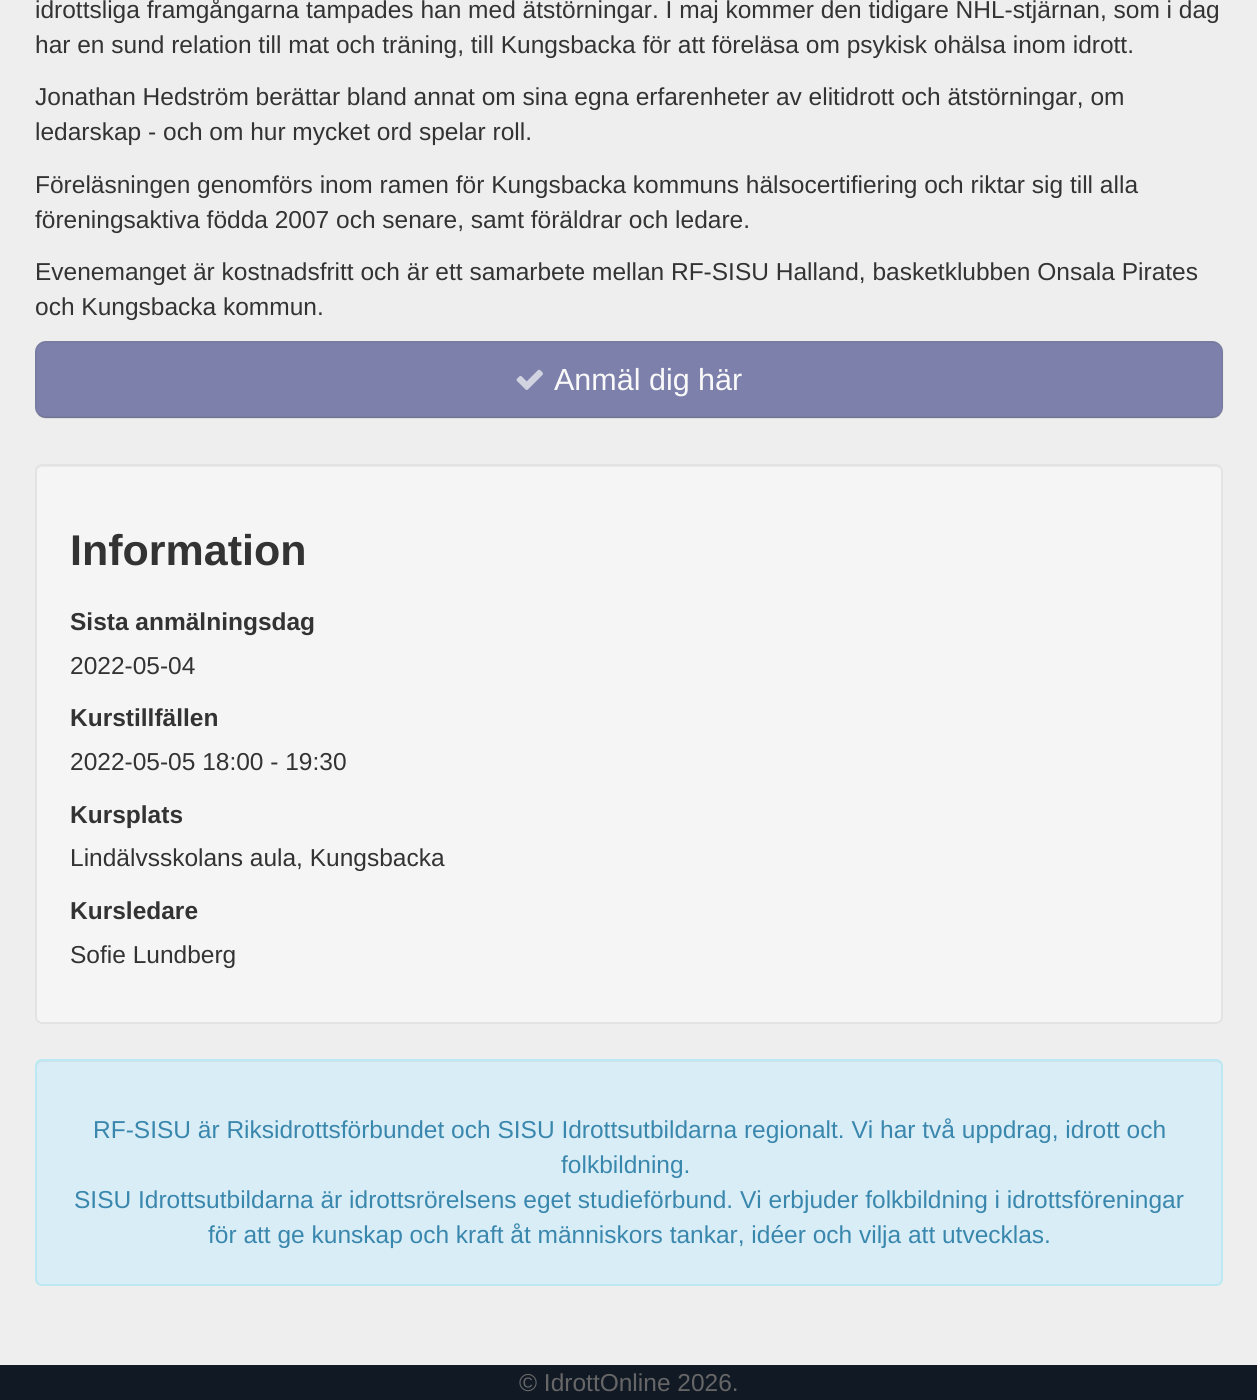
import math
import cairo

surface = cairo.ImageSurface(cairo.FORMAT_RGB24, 1257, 1400)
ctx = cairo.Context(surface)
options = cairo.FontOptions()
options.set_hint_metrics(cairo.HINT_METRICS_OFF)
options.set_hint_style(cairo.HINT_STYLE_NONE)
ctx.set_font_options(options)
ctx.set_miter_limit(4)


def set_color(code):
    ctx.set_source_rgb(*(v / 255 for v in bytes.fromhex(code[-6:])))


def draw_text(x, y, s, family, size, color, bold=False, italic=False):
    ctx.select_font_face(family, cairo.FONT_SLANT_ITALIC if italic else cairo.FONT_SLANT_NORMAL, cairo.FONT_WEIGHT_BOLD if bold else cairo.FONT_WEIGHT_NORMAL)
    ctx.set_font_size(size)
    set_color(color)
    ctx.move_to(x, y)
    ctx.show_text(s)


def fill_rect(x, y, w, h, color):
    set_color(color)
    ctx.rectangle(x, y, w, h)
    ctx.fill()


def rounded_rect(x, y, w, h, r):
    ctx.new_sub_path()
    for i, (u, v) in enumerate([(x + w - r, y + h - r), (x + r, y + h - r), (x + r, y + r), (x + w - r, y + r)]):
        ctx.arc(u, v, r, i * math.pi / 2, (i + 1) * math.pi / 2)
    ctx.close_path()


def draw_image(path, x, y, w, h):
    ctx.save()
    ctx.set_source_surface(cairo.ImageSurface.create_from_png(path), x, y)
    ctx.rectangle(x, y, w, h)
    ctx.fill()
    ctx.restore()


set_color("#111925")
ctx.paint()
fill_rect(0, 0, 1257, 1365, "#eeeeee")
draw_text(35, 18, "idrottsliga framgångarna tampades han med ätstörningar. I maj kommer den tidigare NHL-stjärnan, som i dag", "Liberation Sans", 24.5, "#333333")
draw_text(35, 53, "har en sund relation till mat och träning, till Kungsbacka för att föreläsa om psykisk ohälsa inom idrott.", "Liberation Sans", 24.5, "#333333")
draw_text(35, 105, "Jonathan Hedström berättar bland annat om sina egna erfarenheter av elitidrott och ätstörningar, om", "Liberation Sans", 24.5, "#333333")
draw_text(35, 140, "ledarskap - och om hur mycket ord spelar roll.", "Liberation Sans", 24.5, "#333333")
draw_text(35, 193, "Föreläsningen genomförs inom ramen för Kungsbacka kommuns hälsocertifiering och riktar sig till alla", "Liberation Sans", 24.5, "#333333")
draw_text(35, 228, "föreningsaktiva födda 2007 och senare, samt föräldrar och ledare.", "Liberation Sans", 24.5, "#333333")
draw_text(35, 280, "Evenemanget är kostnadsfritt och är ett samarbete mellan RF-SISU Halland, basketklubben Onsala Pirates", "Liberation Sans", 24.5, "#333333")
draw_text(35, 315, "och Kungsbacka kommun.", "Liberation Sans", 24.5, "#333333")
set_color("#7c80aa")
rounded_rect(35, 341, 1188, 77, 11)
ctx.fill()
ctx.new_path()
ctx.move_to(1219.5, 414.5)
ctx.curve_to(1218, 416.5, 1215.5, 417.5, 1213, 417.5)
ctx.line_to(45.5, 417.5)
ctx.curve_to(43, 417.5, 40.5, 416.5, 38.5, 414.5)
ctx.set_source_rgba(0.325, 0.325, 0.325, 0.25)
ctx.set_line_width(1.8)
ctx.stroke()
ctx.new_path()
ctx.move_to(38.5, 414.5)
ctx.curve_to(37, 413, 36, 410.5, 36, 408)
ctx.line_to(36, 352)
ctx.curve_to(36, 349, 37, 346.5, 38.5, 345)
ctx.curve_to(40.5, 343, 43, 342, 45.5, 342)
ctx.line_to(1213, 342)
ctx.curve_to(1215.5, 342, 1218, 343, 1219.5, 345)
ctx.curve_to(1221.5, 346.5, 1222.5, 349, 1222.5, 352)
ctx.line_to(1222.5, 408)
ctx.curve_to(1222.5, 410.5, 1221.5, 413, 1219.5, 414.5)
ctx.set_source_rgba(0.325, 0.325, 0.325, 0.1)
ctx.stroke()
draw_image("assets/img1.png", 516, 369, 27, 21)
draw_text(554, 390, "Anmäl dig här", "Liberation Sans", 30.5, "#f9f9f9")
set_color("#f5f5f5")
rounded_rect(35, 464, 1188, 560, 7)
ctx.fill()
set_color("#e9e9e9")
ctx.new_path()
ctx.move_to(42, 467)
ctx.line_to(1216, 467)
ctx.curve_to(1219, 467, 1222, 470, 1222, 472)
ctx.curve_to(1222, 469, 1220, 466, 1217, 466)
ctx.line_to(42, 466)
ctx.curve_to(39, 466, 37, 469, 37, 472)
ctx.curve_to(37, 470, 39, 467, 42, 467)
ctx.close_path()
ctx.fill()
rounded_rect(36, 465, 1186, 558, 6)
set_color("#e3e3e3")
ctx.set_line_width(2)
ctx.stroke()
draw_text(70, 565, "Information", "Liberation Sans", 43, "#333333", bold=True)
draw_text(70, 630, "Sista anmälningsdag", "Liberation Sans", 24.5, "#333333", bold=True)
draw_text(70, 674, "2022-05-04", "Liberation Sans", 24.5, "#333333")
draw_text(70, 726, "Kurstillfällen", "Liberation Sans", 24.5, "#333333", bold=True)
draw_text(70, 770, "2022-05-05 18:00 - 19:30", "Liberation Sans", 24.5, "#333333")
draw_text(70, 823, "Kursplats", "Liberation Sans", 24.5, "#333333", bold=True)
draw_text(70, 866, "Lindälvsskolans aula, Kungsbacka", "Liberation Sans", 24.5, "#333333")
draw_text(70, 919, "Kursledare", "Liberation Sans", 24.5, "#333333", bold=True)
draw_text(70, 963, "Sofie Lundberg", "Liberation Sans", 24.5, "#333333")
set_color("#d9edf7")
rounded_rect(35, 1059, 1188, 227, 7)
ctx.fill()
set_color("#cee1eb")
ctx.new_path()
ctx.move_to(42, 1062)
ctx.line_to(1216, 1062)
ctx.curve_to(1219, 1062, 1222, 1065, 1222, 1068)
ctx.line_to(1222, 1066)
ctx.curve_to(1222, 1063, 1220, 1061, 1217, 1061)
ctx.line_to(42, 1061)
ctx.curve_to(39, 1061, 37, 1063, 37, 1066)
ctx.line_to(37, 1068)
ctx.curve_to(37, 1065, 39, 1062, 42, 1062)
ctx.close_path()
ctx.fill()
rounded_rect(36, 1060, 1186, 225, 6)
set_color("#bce8f1")
ctx.stroke()
draw_text(93, 1138, "RF-SISU är Riksidrottsförbundet och SISU Idrottsutbildarna regionalt. Vi har två uppdrag, idrott och", "Liberation Sans", 24.5, "#3a87ad")
draw_text(561, 1173, "folkbildning.", "Liberation Sans", 24.5, "#3a87ad")
draw_text(74, 1208, "SISU Idrottsutbildarna är idrottsrörelsens eget studieförbund. Vi erbjuder folkbildning i idrottsföreningar", "Liberation Sans", 24.5, "#3a87ad")
draw_text(208, 1243, "för att ge kunskap och kraft åt människors tankar, idéer och vilja att utvecklas.", "Liberation Sans", 24.5, "#3a87ad")
draw_text(519, 1391, "© IdrottOnline 2026.", "Liberation Sans", 24.5, "#666666")
surface.write_to_png("output.png")
